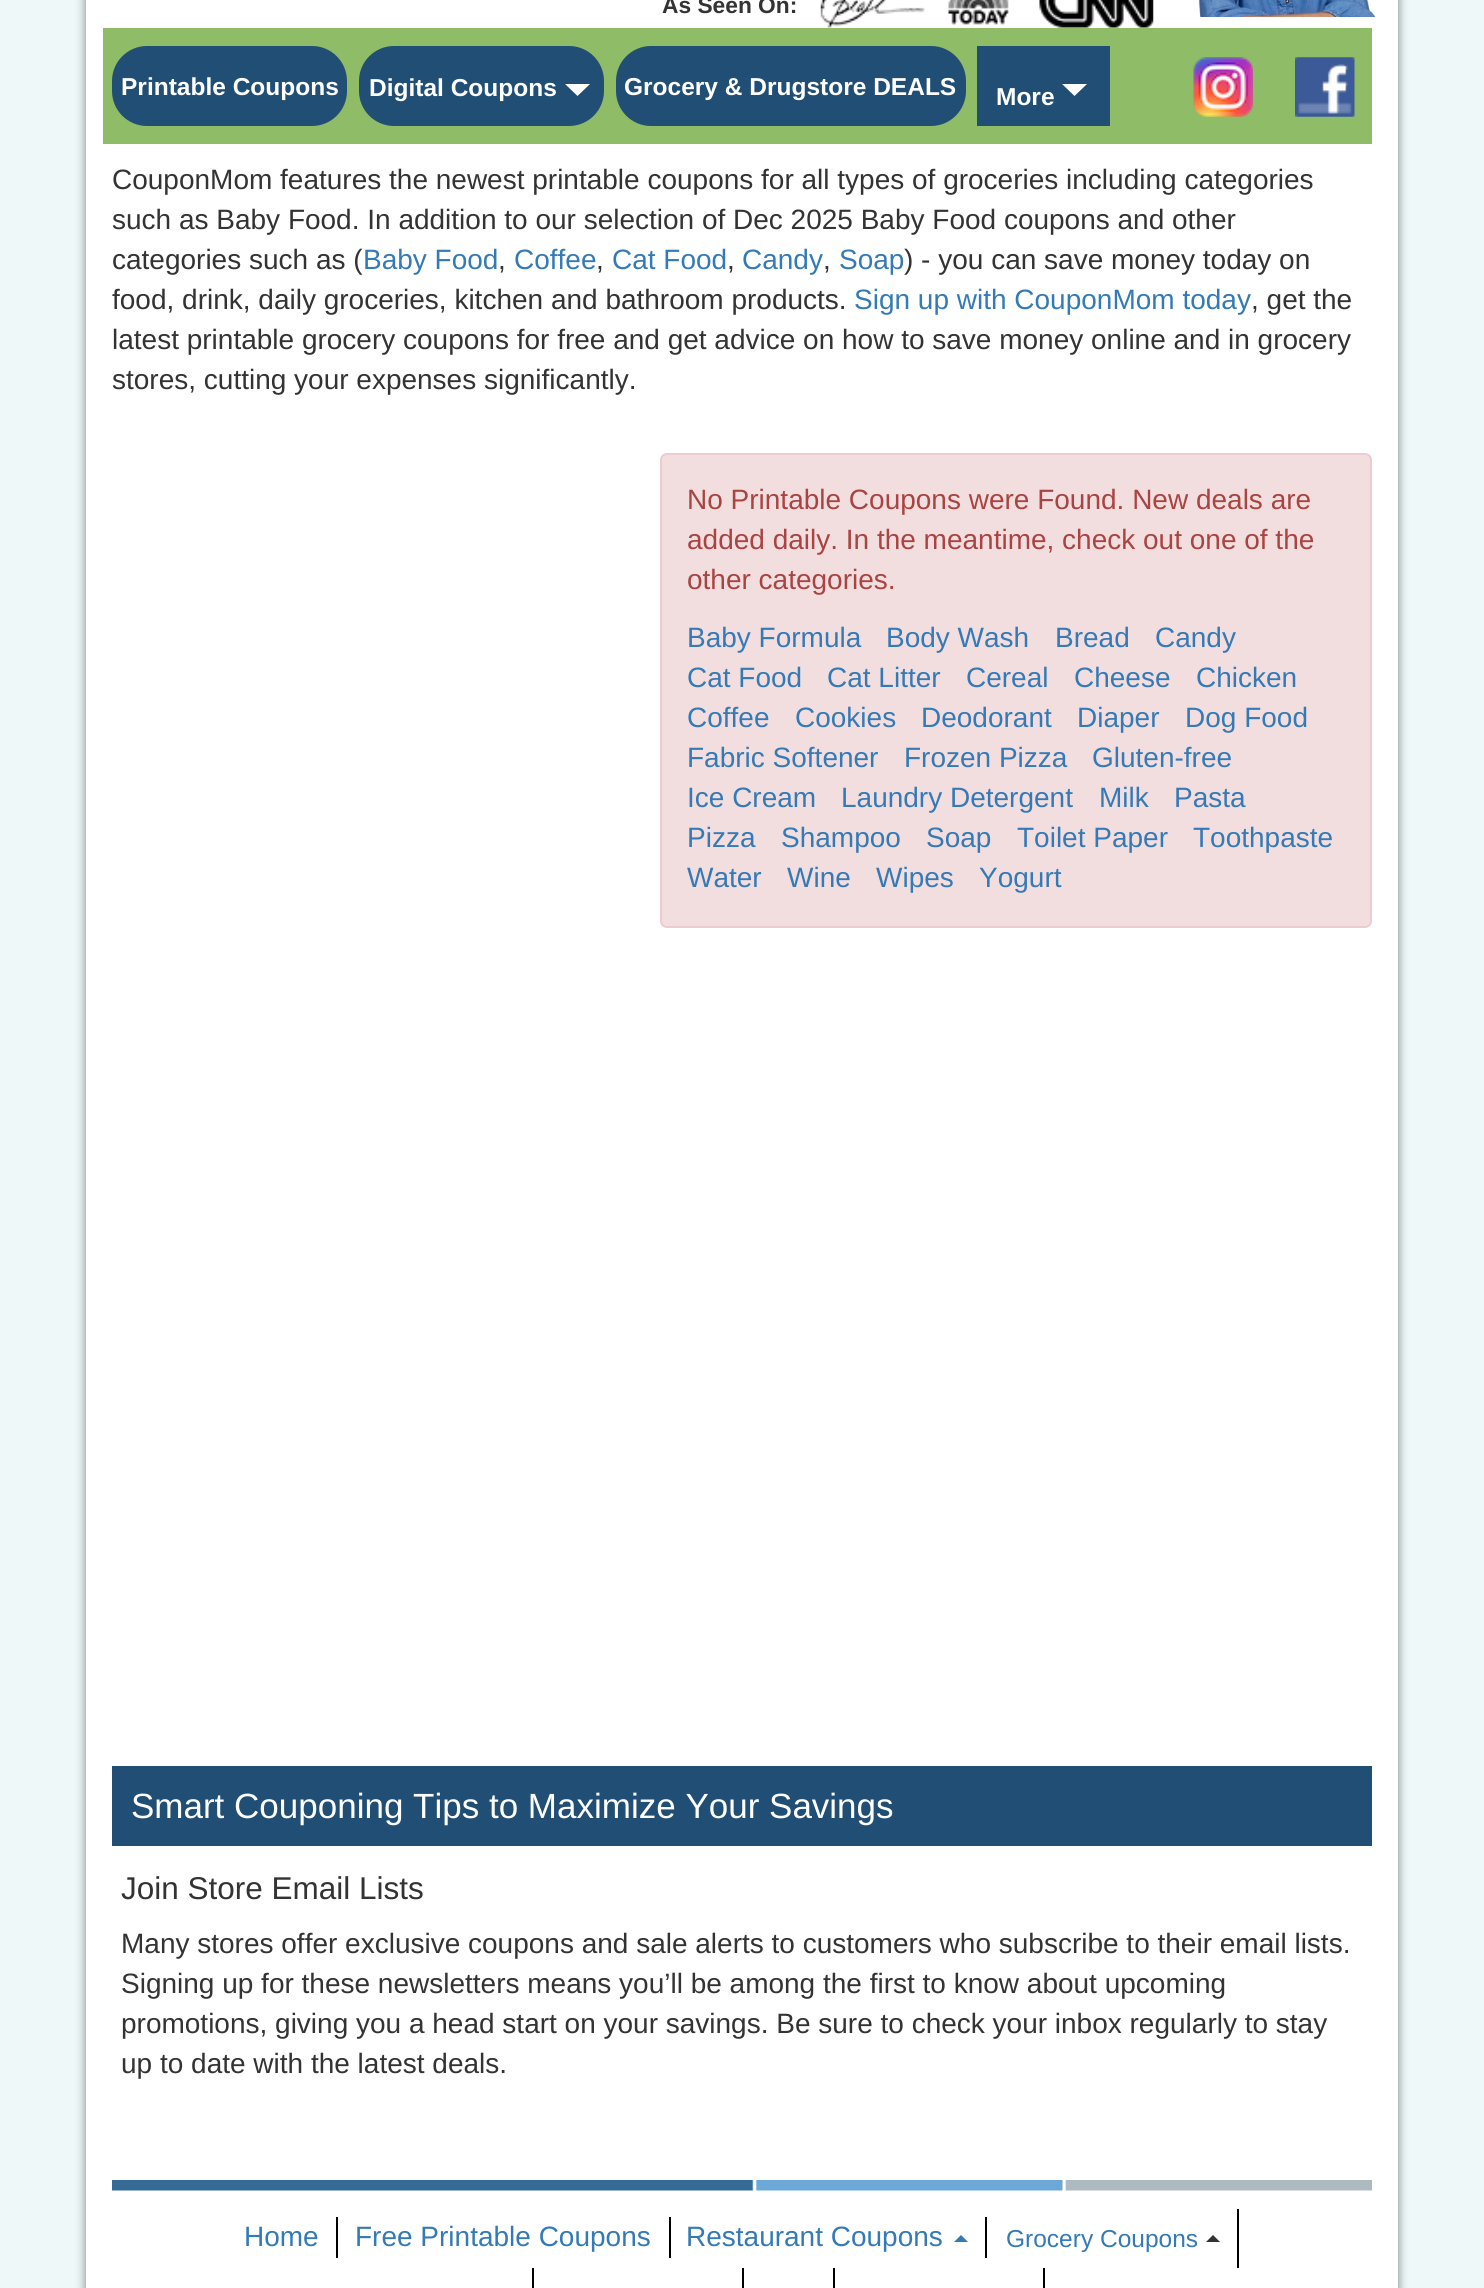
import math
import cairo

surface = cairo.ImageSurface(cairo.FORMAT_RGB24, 1484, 2288)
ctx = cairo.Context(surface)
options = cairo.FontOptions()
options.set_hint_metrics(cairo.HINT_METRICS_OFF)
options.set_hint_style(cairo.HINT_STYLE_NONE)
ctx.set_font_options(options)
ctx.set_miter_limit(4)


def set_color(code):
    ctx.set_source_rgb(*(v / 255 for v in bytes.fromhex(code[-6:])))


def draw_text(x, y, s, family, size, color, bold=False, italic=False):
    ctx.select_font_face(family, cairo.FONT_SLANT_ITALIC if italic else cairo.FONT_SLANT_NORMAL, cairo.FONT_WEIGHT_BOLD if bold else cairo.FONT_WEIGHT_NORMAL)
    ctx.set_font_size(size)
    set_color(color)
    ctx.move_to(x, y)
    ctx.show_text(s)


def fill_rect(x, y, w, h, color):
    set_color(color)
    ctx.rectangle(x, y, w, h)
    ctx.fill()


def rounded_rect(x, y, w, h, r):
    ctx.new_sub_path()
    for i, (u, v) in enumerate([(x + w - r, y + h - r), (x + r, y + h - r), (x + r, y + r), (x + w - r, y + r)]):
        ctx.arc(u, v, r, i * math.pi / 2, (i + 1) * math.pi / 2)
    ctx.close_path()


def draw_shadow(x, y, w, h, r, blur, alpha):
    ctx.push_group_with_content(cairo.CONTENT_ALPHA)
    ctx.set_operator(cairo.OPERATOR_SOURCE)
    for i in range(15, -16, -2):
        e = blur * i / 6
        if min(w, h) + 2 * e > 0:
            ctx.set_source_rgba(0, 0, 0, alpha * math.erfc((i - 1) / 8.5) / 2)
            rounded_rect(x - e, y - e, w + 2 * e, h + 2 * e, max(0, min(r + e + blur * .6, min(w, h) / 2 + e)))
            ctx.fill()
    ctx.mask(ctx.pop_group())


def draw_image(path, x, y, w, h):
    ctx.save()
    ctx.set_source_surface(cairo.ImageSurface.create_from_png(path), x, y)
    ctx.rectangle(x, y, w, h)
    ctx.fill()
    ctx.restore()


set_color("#eef8f9")
ctx.paint()
set_color("#000000")
draw_shadow(86, -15, 1312, 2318, 0, 5, 0.5)
fill_rect(86, 0, 1312, 2288, "#ffffff")
draw_text(662, 13, "As Seen On:", "Liberation Sans", 22.75, "#333333", bold=True)
draw_image("assets/img1.png", 820, 0, 334, 28)
draw_image("assets/img2.png", 1198, 0, 178, 17)
fill_rect(103, 28, 1269, 116, "#8fbc67")
set_color("#214e74")
rounded_rect(112, 46, 235, 80, 35)
ctx.fill()
draw_text(121, 95, "Printable Coupons", "Liberation Sans", 24.5, "#ffffff", bold=True)
set_color("#214e74")
rounded_rect(359, 46, 245, 80, 35)
ctx.fill()
draw_text(369, 96, "Digital Coupons", "Liberation Sans", 24.5, "#ffffff", bold=True)
ctx.new_path()
ctx.move_to(565, 84)
ctx.line_to(590, 84)
ctx.line_to(577.5, 96)
ctx.close_path()
ctx.fill()
set_color("#214e74")
rounded_rect(616, 46, 350, 80, 35)
ctx.fill()
draw_text(624, 95, "Grocery & Drugstore DEALS", "Liberation Sans", 24.5, "#ffffff", bold=True)
fill_rect(977, 46, 133, 80, "#214e74")
draw_text(996, 105, "More", "Liberation Sans", 24.5, "#ffffff", bold=True)
ctx.new_path()
ctx.move_to(1062, 84)
ctx.line_to(1087, 84)
ctx.line_to(1074.5, 96)
ctx.close_path()
ctx.fill()
draw_image("assets/img3.png", 1193, 57, 60, 60)
draw_image("assets/img4.png", 1295, 57, 60, 60)
draw_text(112, 189, "CouponMom features the newest printable coupons for all types of groceries including categories", "Liberation Sans", 28, "#333333")
draw_text(112, 229, "such as Baby Food. In addition to our selection of Dec 2025 Baby Food coupons and other", "Liberation Sans", 28, "#333333")
draw_text(112, 269, "categories such as (", "Liberation Sans", 28, "#333333")
draw_text(363, 269, "Baby Food", "Liberation Sans", 28, "#337ab7")
draw_text(498, 269, ",", "Liberation Sans", 28, "#333333")
draw_text(514, 269, "Coffee", "Liberation Sans", 28, "#337ab7")
draw_text(596, 269, ",", "Liberation Sans", 28, "#333333")
draw_text(612, 269, "Cat Food", "Liberation Sans", 28, "#337ab7")
draw_text(727, 269, ",", "Liberation Sans", 28, "#333333")
draw_text(742, 269, "Candy", "Liberation Sans", 28, "#337ab7")
draw_text(823, 269, ",", "Liberation Sans", 28, "#333333")
draw_text(839, 269, "Soap", "Liberation Sans", 28, "#337ab7")
draw_text(904, 269, ") - you can save money today on", "Liberation Sans", 28, "#333333")
draw_text(112, 309, "food, drink, daily groceries, kitchen and bathroom products.", "Liberation Sans", 28, "#333333")
draw_text(854, 309, "Sign up with CouponMom today", "Liberation Sans", 28, "#337ab7")
draw_text(1251, 309, ", get the", "Liberation Sans", 28, "#333333")
draw_text(112, 349, "latest printable grocery coupons for free and get advice on how to save money online and in grocery", "Liberation Sans", 28, "#333333")
draw_text(112, 389, "stores, cutting your expenses significantly.", "Liberation Sans", 28, "#333333")
set_color("#f2dede")
rounded_rect(661, 454, 710, 473, 6)
ctx.fill_preserve()
set_color("#ebccd1")
ctx.stroke()
draw_text(687, 509, "No Printable Coupons were Found. New deals are", "Liberation Sans", 28, "#a94442")
draw_text(687, 549, "added daily. In the meantime, check out one of the", "Liberation Sans", 28, "#a94442")
draw_text(687, 589, "other categories.", "Liberation Sans", 28, "#a94442")
draw_text(687, 647, "Baby Formula", "Liberation Sans", 28, "#337ab7")
draw_text(886, 647, "Body Wash", "Liberation Sans", 28, "#337ab7")
draw_text(1055, 647, "Bread", "Liberation Sans", 28, "#337ab7")
draw_text(1155, 647, "Candy", "Liberation Sans", 28, "#337ab7")
draw_text(687, 687, "Cat Food", "Liberation Sans", 28, "#337ab7")
draw_text(827, 687, "Cat Litter", "Liberation Sans", 28, "#337ab7")
draw_text(966, 687, "Cereal", "Liberation Sans", 28, "#337ab7")
draw_text(1074, 687, "Cheese", "Liberation Sans", 28, "#337ab7")
draw_text(1196, 687, "Chicken", "Liberation Sans", 28, "#337ab7")
draw_text(687, 727, "Coffee", "Liberation Sans", 28, "#337ab7")
draw_text(795, 727, "Cookies", "Liberation Sans", 28, "#337ab7")
draw_text(921, 727, "Deodorant", "Liberation Sans", 28, "#337ab7")
draw_text(1077, 727, "Diaper", "Liberation Sans", 28, "#337ab7")
draw_text(1185, 727, "Dog Food", "Liberation Sans", 28, "#337ab7")
draw_text(687, 767, "Fabric Softener", "Liberation Sans", 28, "#337ab7")
draw_text(904, 767, "Frozen Pizza", "Liberation Sans", 28, "#337ab7")
draw_text(1092, 767, "Gluten-free", "Liberation Sans", 28, "#337ab7")
draw_text(687, 807, "Ice Cream", "Liberation Sans", 28, "#337ab7")
draw_text(841, 807, "Laundry Detergent", "Liberation Sans", 28, "#337ab7")
draw_text(1099, 807, "Milk", "Liberation Sans", 28, "#337ab7")
draw_text(1174, 807, "Pasta", "Liberation Sans", 28, "#337ab7")
draw_text(687, 847, "Pizza", "Liberation Sans", 28, "#337ab7")
draw_text(781, 847, "Shampoo", "Liberation Sans", 28, "#337ab7")
draw_text(926, 847, "Soap", "Liberation Sans", 28, "#337ab7")
draw_text(1017, 847, "Toilet Paper", "Liberation Sans", 28, "#337ab7")
draw_text(1193, 847, "Toothpaste", "Liberation Sans", 28, "#337ab7")
draw_text(687, 887, "Water", "Liberation Sans", 28, "#337ab7")
draw_text(787, 887, "Wine", "Liberation Sans", 28, "#337ab7")
draw_text(876, 887, "Wipes", "Liberation Sans", 28, "#337ab7")
draw_text(979, 887, "Yogurt", "Liberation Sans", 28, "#337ab7")
fill_rect(112, 1766, 1260, 80, "#214e74")
draw_text(131, 1818, "Smart Couponing Tips to Maximize Your Savings", "Liberation Sans", 35, "#ffffff")
draw_text(121, 1899, "Join Store Email Lists", "Liberation Sans", 31.5, "#333333")
draw_text(121, 1953, "Many stores offer exclusive coupons and sale alerts to customers who subscribe to their email lists.", "Liberation Sans", 28, "#333333")
draw_text(121, 1993, "Signing up for these newsletters means you’ll be among the first to know about upcoming", "Liberation Sans", 28, "#333333")
draw_text(121, 2033, "promotions, giving you a head start on your savings. Be sure to check your inbox regularly to stay", "Liberation Sans", 28, "#333333")
draw_text(121, 2073, "up to date with the latest deals.", "Liberation Sans", 28, "#333333")
draw_image("assets/img5.png", 112, 2180, 1260, 11)
fill_rect(336, 2217, 2, 41, "#000000")
draw_text(244, 2246, "Home", "Liberation Sans", 28, "#337ab7")
fill_rect(669, 2217, 2, 41, "#000000")
draw_text(355, 2246, "Free Printable Coupons", "Liberation Sans", 28, "#337ab7")
fill_rect(985, 2217, 2, 41, "#000000")
draw_text(686, 2246, "Restaurant Coupons", "Liberation Sans", 28, "#337ab7")
ctx.new_path()
ctx.move_to(968, 2242)
ctx.line_to(954, 2242)
ctx.line_to(961, 2235)
ctx.close_path()
ctx.fill()
fill_rect(1237, 2209, 2, 59, "#000000")
draw_text(1006, 2247, "Grocery Coupons", "Liberation Sans", 24.5, "#337ab7")
set_color("#333333")
ctx.new_path()
ctx.move_to(1220, 2242)
ctx.line_to(1206, 2242)
ctx.line_to(1213, 2235)
ctx.close_path()
ctx.fill()
fill_rect(532, 2268, 2, 20, "#000000")
fill_rect(742, 2268, 2, 20, "#000000")
fill_rect(833, 2268, 2, 20, "#000000")
fill_rect(1043, 2268, 2, 20, "#000000")
surface.write_to_png("output.png")
